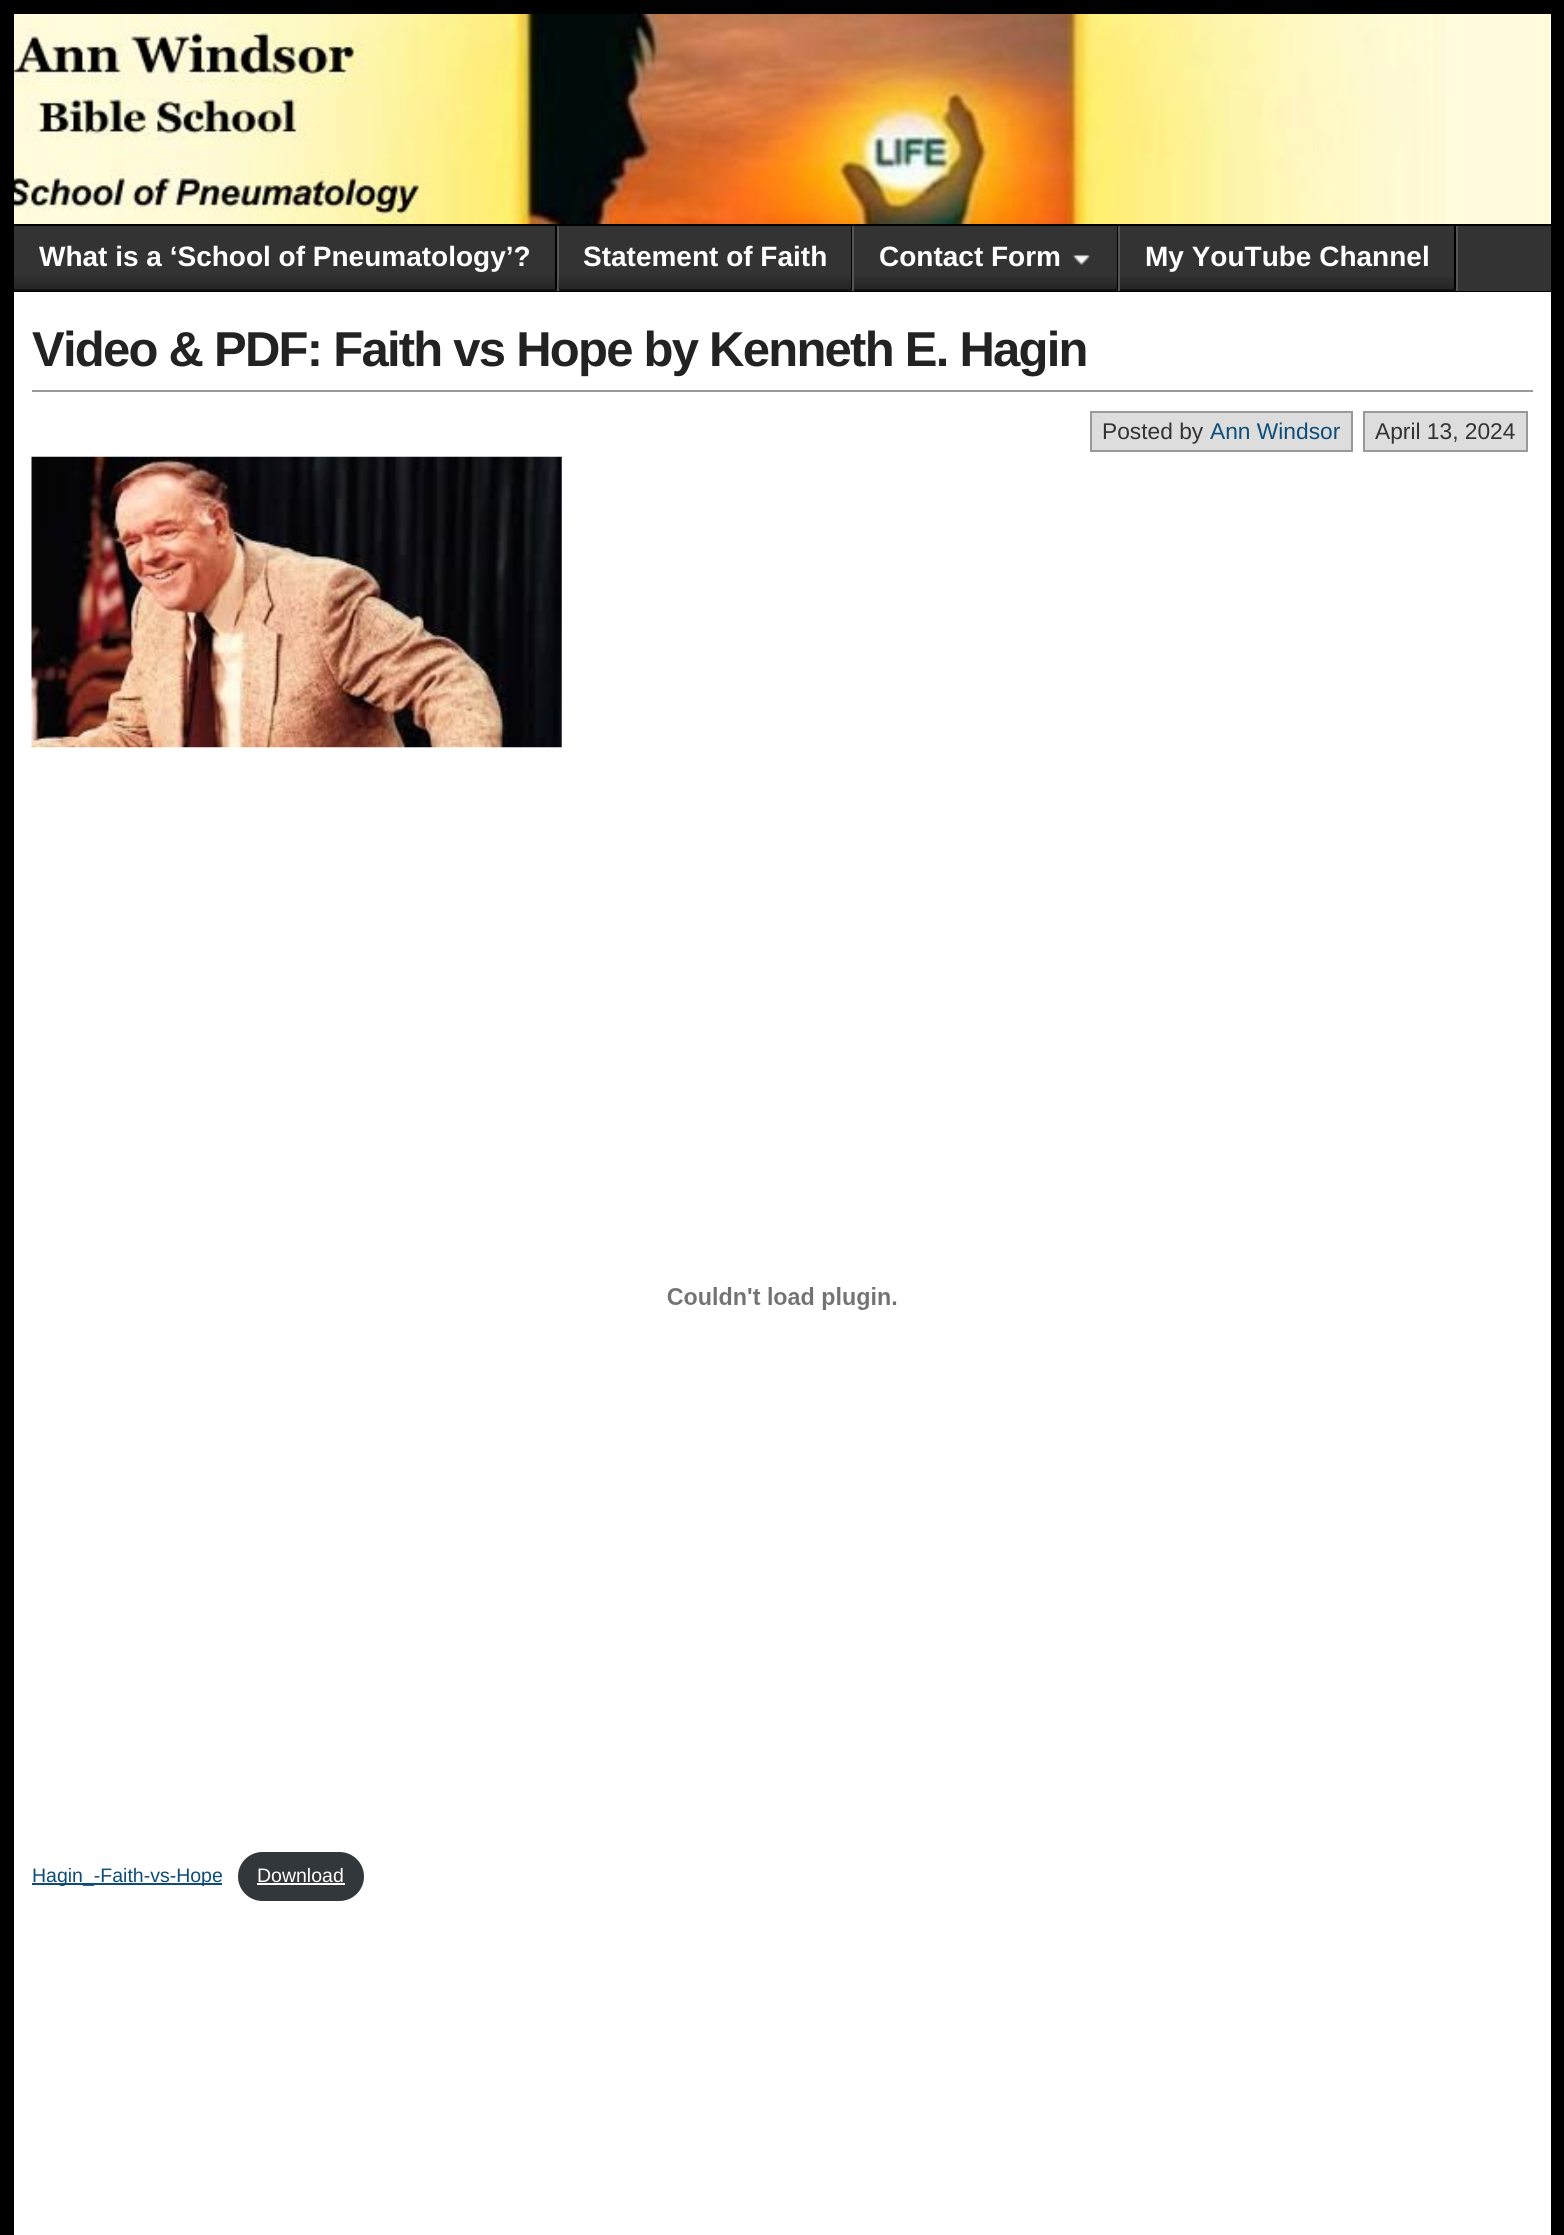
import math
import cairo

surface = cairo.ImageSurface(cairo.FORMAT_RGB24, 1564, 2235)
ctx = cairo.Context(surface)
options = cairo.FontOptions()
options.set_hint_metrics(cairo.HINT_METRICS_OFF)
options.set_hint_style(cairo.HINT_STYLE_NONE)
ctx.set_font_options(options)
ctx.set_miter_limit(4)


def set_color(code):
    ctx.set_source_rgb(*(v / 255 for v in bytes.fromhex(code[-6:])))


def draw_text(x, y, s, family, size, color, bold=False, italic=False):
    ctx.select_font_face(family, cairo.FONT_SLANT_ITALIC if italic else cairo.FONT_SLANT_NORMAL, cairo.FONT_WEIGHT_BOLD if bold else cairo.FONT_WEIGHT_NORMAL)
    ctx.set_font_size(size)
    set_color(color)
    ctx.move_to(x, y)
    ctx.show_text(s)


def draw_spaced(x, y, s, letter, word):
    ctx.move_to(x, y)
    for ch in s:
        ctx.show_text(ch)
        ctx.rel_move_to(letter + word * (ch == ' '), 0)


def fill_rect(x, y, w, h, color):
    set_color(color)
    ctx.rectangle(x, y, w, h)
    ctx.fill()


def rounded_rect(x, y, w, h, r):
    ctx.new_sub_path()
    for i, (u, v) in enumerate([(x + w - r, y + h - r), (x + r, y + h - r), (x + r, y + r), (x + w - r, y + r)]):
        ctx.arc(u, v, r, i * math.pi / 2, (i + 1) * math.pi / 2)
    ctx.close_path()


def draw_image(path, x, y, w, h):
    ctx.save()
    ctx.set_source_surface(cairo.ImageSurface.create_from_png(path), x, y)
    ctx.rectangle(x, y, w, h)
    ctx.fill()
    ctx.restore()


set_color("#ffffff")
ctx.paint()
ctx.rectangle(7, 7, 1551, 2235)
set_color("#000000")
ctx.set_line_width(14)
ctx.stroke()
draw_image("assets/img1.png", 14, 14, 1537, 210)
fill_rect(559, 226, 992, 65, "#333333")
fill_rect(14, 224, 1537, 2, "#000000")
fill_rect(14, 291, 1537, 1, "#000000")
fill_rect(1456, 226, 2, 65, "#555555")
fill_rect(555, 226, 2, 65, "#000000")
fill_rect(14, 289, 543, 2, "#111111")
gradient = cairo.LinearGradient(284, 226, 284, 289)
gradient.add_color_stop_rgba(0.75, 0.2, 0.2, 0.2, 1)
gradient.add_color_stop_rgba(1, 0.145, 0.145, 0.145, 1)
ctx.set_source(gradient)
ctx.rectangle(14, 226, 541, 63)
ctx.fill()
draw_text(39, 266, "What is a ‘School of Pneumatology’?", "Liberation Sans", 28, "#ffffff", bold=True)
fill_rect(851, 226, 1, 65, "#000000")
fill_rect(557, 289, 295, 2, "#111111")
fill_rect(557, 226, 2, 65, "#555555")
gradient = cairo.LinearGradient(704, 226, 704, 289)
gradient.add_color_stop_rgba(0.75, 0, 0, 0, 0)
gradient.add_color_stop_rgba(1, 0, 0, 0, 0.28)
ctx.set_source(gradient)
ctx.rectangle(558, 275, 293, 14)
ctx.fill()
draw_text(583, 266, "Statement of Faith", "Liberation Sans", 28, "#ffffff", bold=True)
fill_rect(1117, 226, 1, 65, "#000000")
fill_rect(852, 289, 266, 2, "#111111")
fill_rect(852, 226, 2, 65, "#555555")
gradient = cairo.LinearGradient(985, 226, 985, 289)
gradient.add_color_stop_rgba(0.75, 0.2, 0.2, 0.2, 1)
gradient.add_color_stop_rgba(1, 0.145, 0.145, 0.145, 1)
ctx.set_source(gradient)
ctx.rectangle(854, 276, 263, 13)
ctx.fill()
draw_text(879, 266, "Contact Form", "Liberation Sans", 28, "#ffffff", bold=True)
draw_image("assets/img2.png", 1072, 255, 19, 10)
fill_rect(1454, 226, 2, 65, "#000000")
fill_rect(1118, 289, 338, 2, "#111111")
fill_rect(1118, 226, 2, 65, "#555555")
gradient = cairo.LinearGradient(1287, 226, 1287, 289)
gradient.add_color_stop_rgba(0.75, 0.2, 0.2, 0.2, 1)
gradient.add_color_stop_rgba(1, 0.145, 0.145, 0.145, 1)
ctx.set_source(gradient)
ctx.rectangle(1120, 276, 334, 13)
ctx.fill()
draw_text(1145, 266, "My YouTube Channel", "Liberation Sans", 28, "#ffffff", bold=True)
ctx.set_font_size(49)
set_color("#222222")
draw_spaced(32, 366, "Video & PDF: Faith vs Hope by Kenneth E. Hagin", -1.75, 0)
fill_rect(32, 390, 1501, 2, "#999999")
set_color("#dddddd")
ctx.rectangle(1091, 412, 261, 39)
ctx.fill_preserve()
set_color("#999999")
ctx.set_line_width(2)
ctx.stroke()
draw_text(1102, 439, "Posted by", "Liberation Sans", 22.75, "#333333")
draw_text(1210, 439, "Ann Windsor", "Liberation Sans", 22.75, "#0e4d7a")
set_color("#dddddd")
ctx.rectangle(1364, 412, 163, 39)
ctx.fill_preserve()
set_color("#999999")
ctx.stroke()
draw_text(1375, 439, "April 13, 2024", "Liberation Sans", 22.75, "#333333")
draw_image("assets/img3.png", 31, 456, 531, 292)
draw_image("assets/img4.png", 667, 1287, 230, 23)
fill_rect(32, 1883, 190, 2, "#0e4d7a")
draw_text(32, 1882, "Hagin_-Faith-vs-Hope", "Liberation Sans", 19.5, "#0e4d7a")
set_color("#32373c")
rounded_rect(238, 1852, 126, 49, 24.5)
ctx.fill()
draw_text(257, 1882, "Download", "Liberation Sans", 19.5, "#ffffff")
fill_rect(257, 1883, 88, 2, "#ffffff")
surface.write_to_png("output.png")
